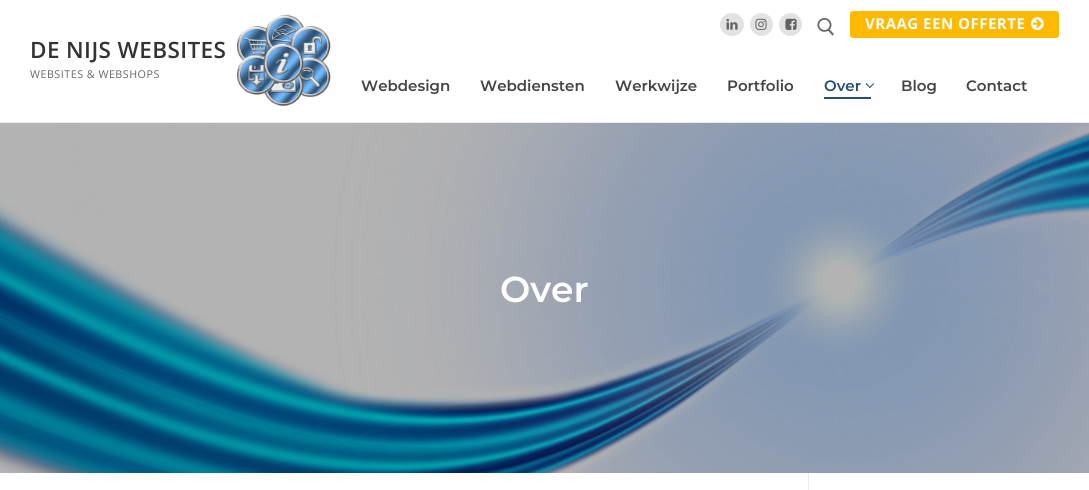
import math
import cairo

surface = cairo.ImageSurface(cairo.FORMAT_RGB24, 1089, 490)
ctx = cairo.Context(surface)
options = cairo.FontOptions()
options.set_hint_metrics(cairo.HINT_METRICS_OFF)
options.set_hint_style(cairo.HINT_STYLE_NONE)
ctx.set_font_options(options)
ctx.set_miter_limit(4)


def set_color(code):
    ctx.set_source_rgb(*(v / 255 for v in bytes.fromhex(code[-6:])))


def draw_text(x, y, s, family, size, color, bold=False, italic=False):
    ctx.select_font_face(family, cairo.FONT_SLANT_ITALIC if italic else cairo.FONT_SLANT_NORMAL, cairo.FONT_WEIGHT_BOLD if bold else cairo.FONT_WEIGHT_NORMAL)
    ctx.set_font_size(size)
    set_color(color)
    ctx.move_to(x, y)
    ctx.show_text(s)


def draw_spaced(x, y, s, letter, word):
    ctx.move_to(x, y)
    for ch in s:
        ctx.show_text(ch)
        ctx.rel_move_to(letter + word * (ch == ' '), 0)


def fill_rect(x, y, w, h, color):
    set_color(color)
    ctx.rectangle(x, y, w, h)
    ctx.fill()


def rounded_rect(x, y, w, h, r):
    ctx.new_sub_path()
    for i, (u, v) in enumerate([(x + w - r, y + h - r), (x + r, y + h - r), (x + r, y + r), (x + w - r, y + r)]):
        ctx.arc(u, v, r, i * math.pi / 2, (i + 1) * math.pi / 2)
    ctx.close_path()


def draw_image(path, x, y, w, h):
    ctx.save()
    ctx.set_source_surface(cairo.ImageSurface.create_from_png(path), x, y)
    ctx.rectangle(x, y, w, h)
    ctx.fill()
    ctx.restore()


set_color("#ffffff")
ctx.paint()
set_color("#e2e2e2")
rounded_rect(720, 13, 24, 23, 11.5)
ctx.fill()
draw_image("assets/img1.png", 726, 19, 12, 11)
ctx.arc(761.5, 24.5, 11.5, 0, 2 * math.pi)
ctx.fill()
draw_image("assets/img2.png", 755, 18, 12, 12)
ctx.arc(790.5, 24.5, 11.5, 0, 2 * math.pi)
ctx.fill()
draw_image("assets/img3.png", 785, 18, 12, 12)
draw_image("assets/img4.png", 817, 18, 17, 18)
set_color("#ffb900")
rounded_rect(850, 11, 209, 27, 3)
ctx.fill()
ctx.select_font_face("Open Sans", cairo.FONT_SLANT_NORMAL, cairo.FONT_WEIGHT_BOLD)
ctx.set_font_size(15)
set_color("#fefefe")
draw_spaced(865, 29, "VRAAG EEN OFFERTE", 0.5, 0)
draw_image("assets/img5.png", 1031, 17, 13, 14)
fill_rect(0, 122, 1089, 1, "#eaeaea")
ctx.select_font_face("Open Sans SemiBold")
ctx.set_font_size(22.5)
set_color("#333333")
draw_spaced(30, 58, "DE NIJS WEBSITES", 0.4, 0)
ctx.select_font_face("Open Sans")
ctx.set_font_size(10.75)
set_color("#666666")
draw_spaced(30, 78, "WEBSITES & WEBSHOPS", 0.5, 0)
draw_image("assets/img6.png", 237, 14, 94, 93)
draw_text(361, 91, "Webdesign", "Montserrat SemiBold", 15, "#444444")
draw_text(480, 91, "Webdiensten", "Montserrat SemiBold", 15, "#444444")
draw_text(615, 91, "Werkwijze", "Montserrat SemiBold", 15, "#444444")
draw_text(727, 91, "Portfolio", "Montserrat SemiBold", 15, "#444444")
draw_text(824, 91, "Over", "Montserrat SemiBold", 15, "#234e7a")
ctx.new_path()
ctx.move_to(870, 88)
ctx.line_to(865.5, 84)
ctx.line_to(866.5, 83)
ctx.line_to(870.5, 87.5)
ctx.close_path()
ctx.fill()
ctx.new_path()
ctx.move_to(870, 88)
ctx.line_to(869, 87.5)
ctx.line_to(873.5, 83)
ctx.line_to(874, 84)
ctx.close_path()
ctx.fill()
fill_rect(824, 97, 47, 2, "#234e7a")
draw_text(901, 91, "Blog", "Montserrat SemiBold", 15, "#444444")
draw_text(966, 91, "Contact", "Montserrat SemiBold", 15, "#444444")
draw_image("assets/img7.png", 0, 123, 1089, 350)
draw_text(500, 302, "Over", "Montserrat SemiBold", 36, "#fefefe")
fill_rect(808, 473, 1, 17, "#eaecee")
surface.write_to_png("output.png")
